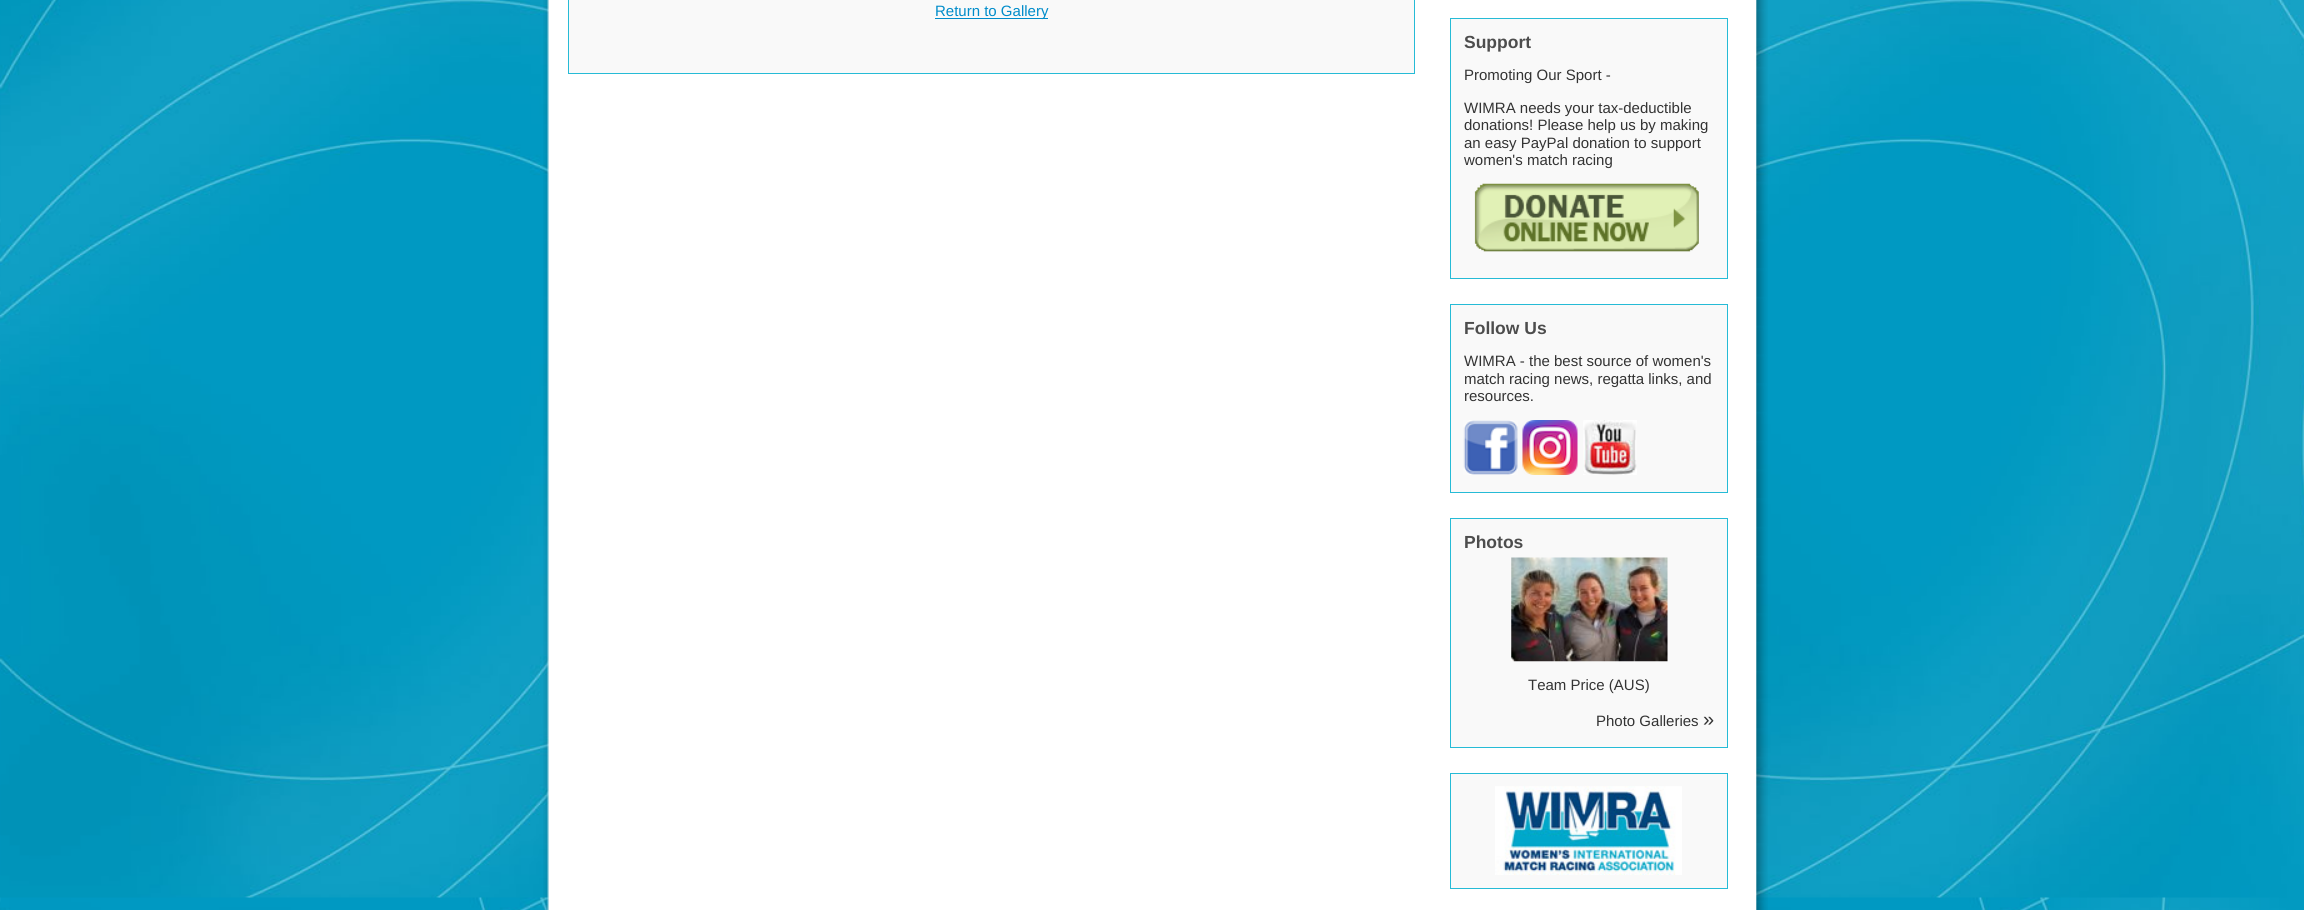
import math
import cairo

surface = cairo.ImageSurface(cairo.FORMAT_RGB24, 2304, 910)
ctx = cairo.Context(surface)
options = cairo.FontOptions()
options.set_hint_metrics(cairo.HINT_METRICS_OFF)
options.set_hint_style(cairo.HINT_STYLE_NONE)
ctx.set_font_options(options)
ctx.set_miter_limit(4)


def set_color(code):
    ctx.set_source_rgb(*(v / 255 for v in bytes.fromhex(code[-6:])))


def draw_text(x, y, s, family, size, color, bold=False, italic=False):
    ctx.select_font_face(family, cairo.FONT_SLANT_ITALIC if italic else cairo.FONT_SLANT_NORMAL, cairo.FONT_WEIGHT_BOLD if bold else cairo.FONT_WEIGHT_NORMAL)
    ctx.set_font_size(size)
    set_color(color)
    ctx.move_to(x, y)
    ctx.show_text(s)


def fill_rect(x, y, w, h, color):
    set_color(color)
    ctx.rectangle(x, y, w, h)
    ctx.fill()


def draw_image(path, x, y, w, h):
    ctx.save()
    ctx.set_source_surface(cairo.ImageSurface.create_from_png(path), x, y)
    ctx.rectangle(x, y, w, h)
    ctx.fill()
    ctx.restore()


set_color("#ffffff")
ctx.paint()
draw_image("assets/img1.png", 0, 0, 2304, 910)
draw_image("assets/img2.png", 543, 0, 1225, 910)
fill_rect(569, 0, 845, 73, "#f9f9f9")
fill_rect(1414, 0, 1, 74, "#26bbd6")
fill_rect(568, 0, 1, 48, "#26bbd6")
fill_rect(935, 18, 113, 1, "#008cca")
draw_text(935, 16, "Return to Gallery", "Liberation Sans", 15, "#008cca")
fill_rect(568, 73, 847, 1, "#26bbd6")
fill_rect(568, 48, 1, 26, "#26bbd6")
set_color("#f9f9f9")
ctx.rectangle(1450.5, 18.5, 277, 260)
ctx.fill_preserve()
set_color("#26bbd6")
ctx.set_line_width(1)
ctx.stroke()
draw_text(1464, 48, "Support", "Liberation Sans", 17.5, "#4d4d4d", bold=True)
draw_text(1464, 80, "Promoting Our Sport -", "Liberation Sans", 15, "#333333")
draw_text(1464, 113, "WIMRA needs your tax-deductible", "Liberation Sans", 15, "#333333")
draw_text(1464, 130, "donations! Please help us by making", "Liberation Sans", 15, "#333333")
draw_text(1464, 148, "an easy PayPal donation to support", "Liberation Sans", 15, "#333333")
draw_text(1464, 165, "women's match racing", "Liberation Sans", 15, "#333333")
draw_image("assets/img3.png", 1474, 183, 225, 69)
set_color("#f9f9f9")
ctx.rectangle(1450.5, 304.5, 277, 188)
ctx.fill_preserve()
set_color("#26bbd6")
ctx.stroke()
draw_text(1464, 334, "Follow Us", "Liberation Sans", 17.5, "#4d4d4d", bold=True)
draw_text(1464, 366, "WIMRA - the best source of women's", "Liberation Sans", 15, "#333333")
draw_text(1464, 384, "match racing news, regatta links, and", "Liberation Sans", 15, "#333333")
draw_text(1464, 401, "resources.", "Liberation Sans", 15, "#333333")
draw_image("assets/img4.png", 1463, 420, 55, 55)
draw_image("assets/img5.png", 1522, 420, 56, 55)
draw_image("assets/img6.png", 1583, 420, 54, 55)
set_color("#f9f9f9")
ctx.rectangle(1450.5, 518.5, 277, 229)
ctx.fill_preserve()
set_color("#26bbd6")
ctx.stroke()
draw_text(1464, 548, "Photos", "Liberation Sans", 17.5, "#4d4d4d", bold=True)
draw_image("assets/img7.png", 1511, 557, 157, 105)
draw_text(1528, 690, "Team Price (AUS)", "Liberation Sans", 15, "#333333")
draw_text(1596, 726, "Photo Galleries", "Liberation Sans", 15, "#333333")
draw_text(1703, 726, "»", "Liberation Sans", 20, "#333333")
set_color("#f9f9f9")
ctx.rectangle(1450.5, 773.5, 277, 115)
ctx.fill_preserve()
set_color("#26bbd6")
ctx.stroke()
draw_image("assets/img8.png", 1495, 786, 187, 89)
surface.write_to_png("output.png")
